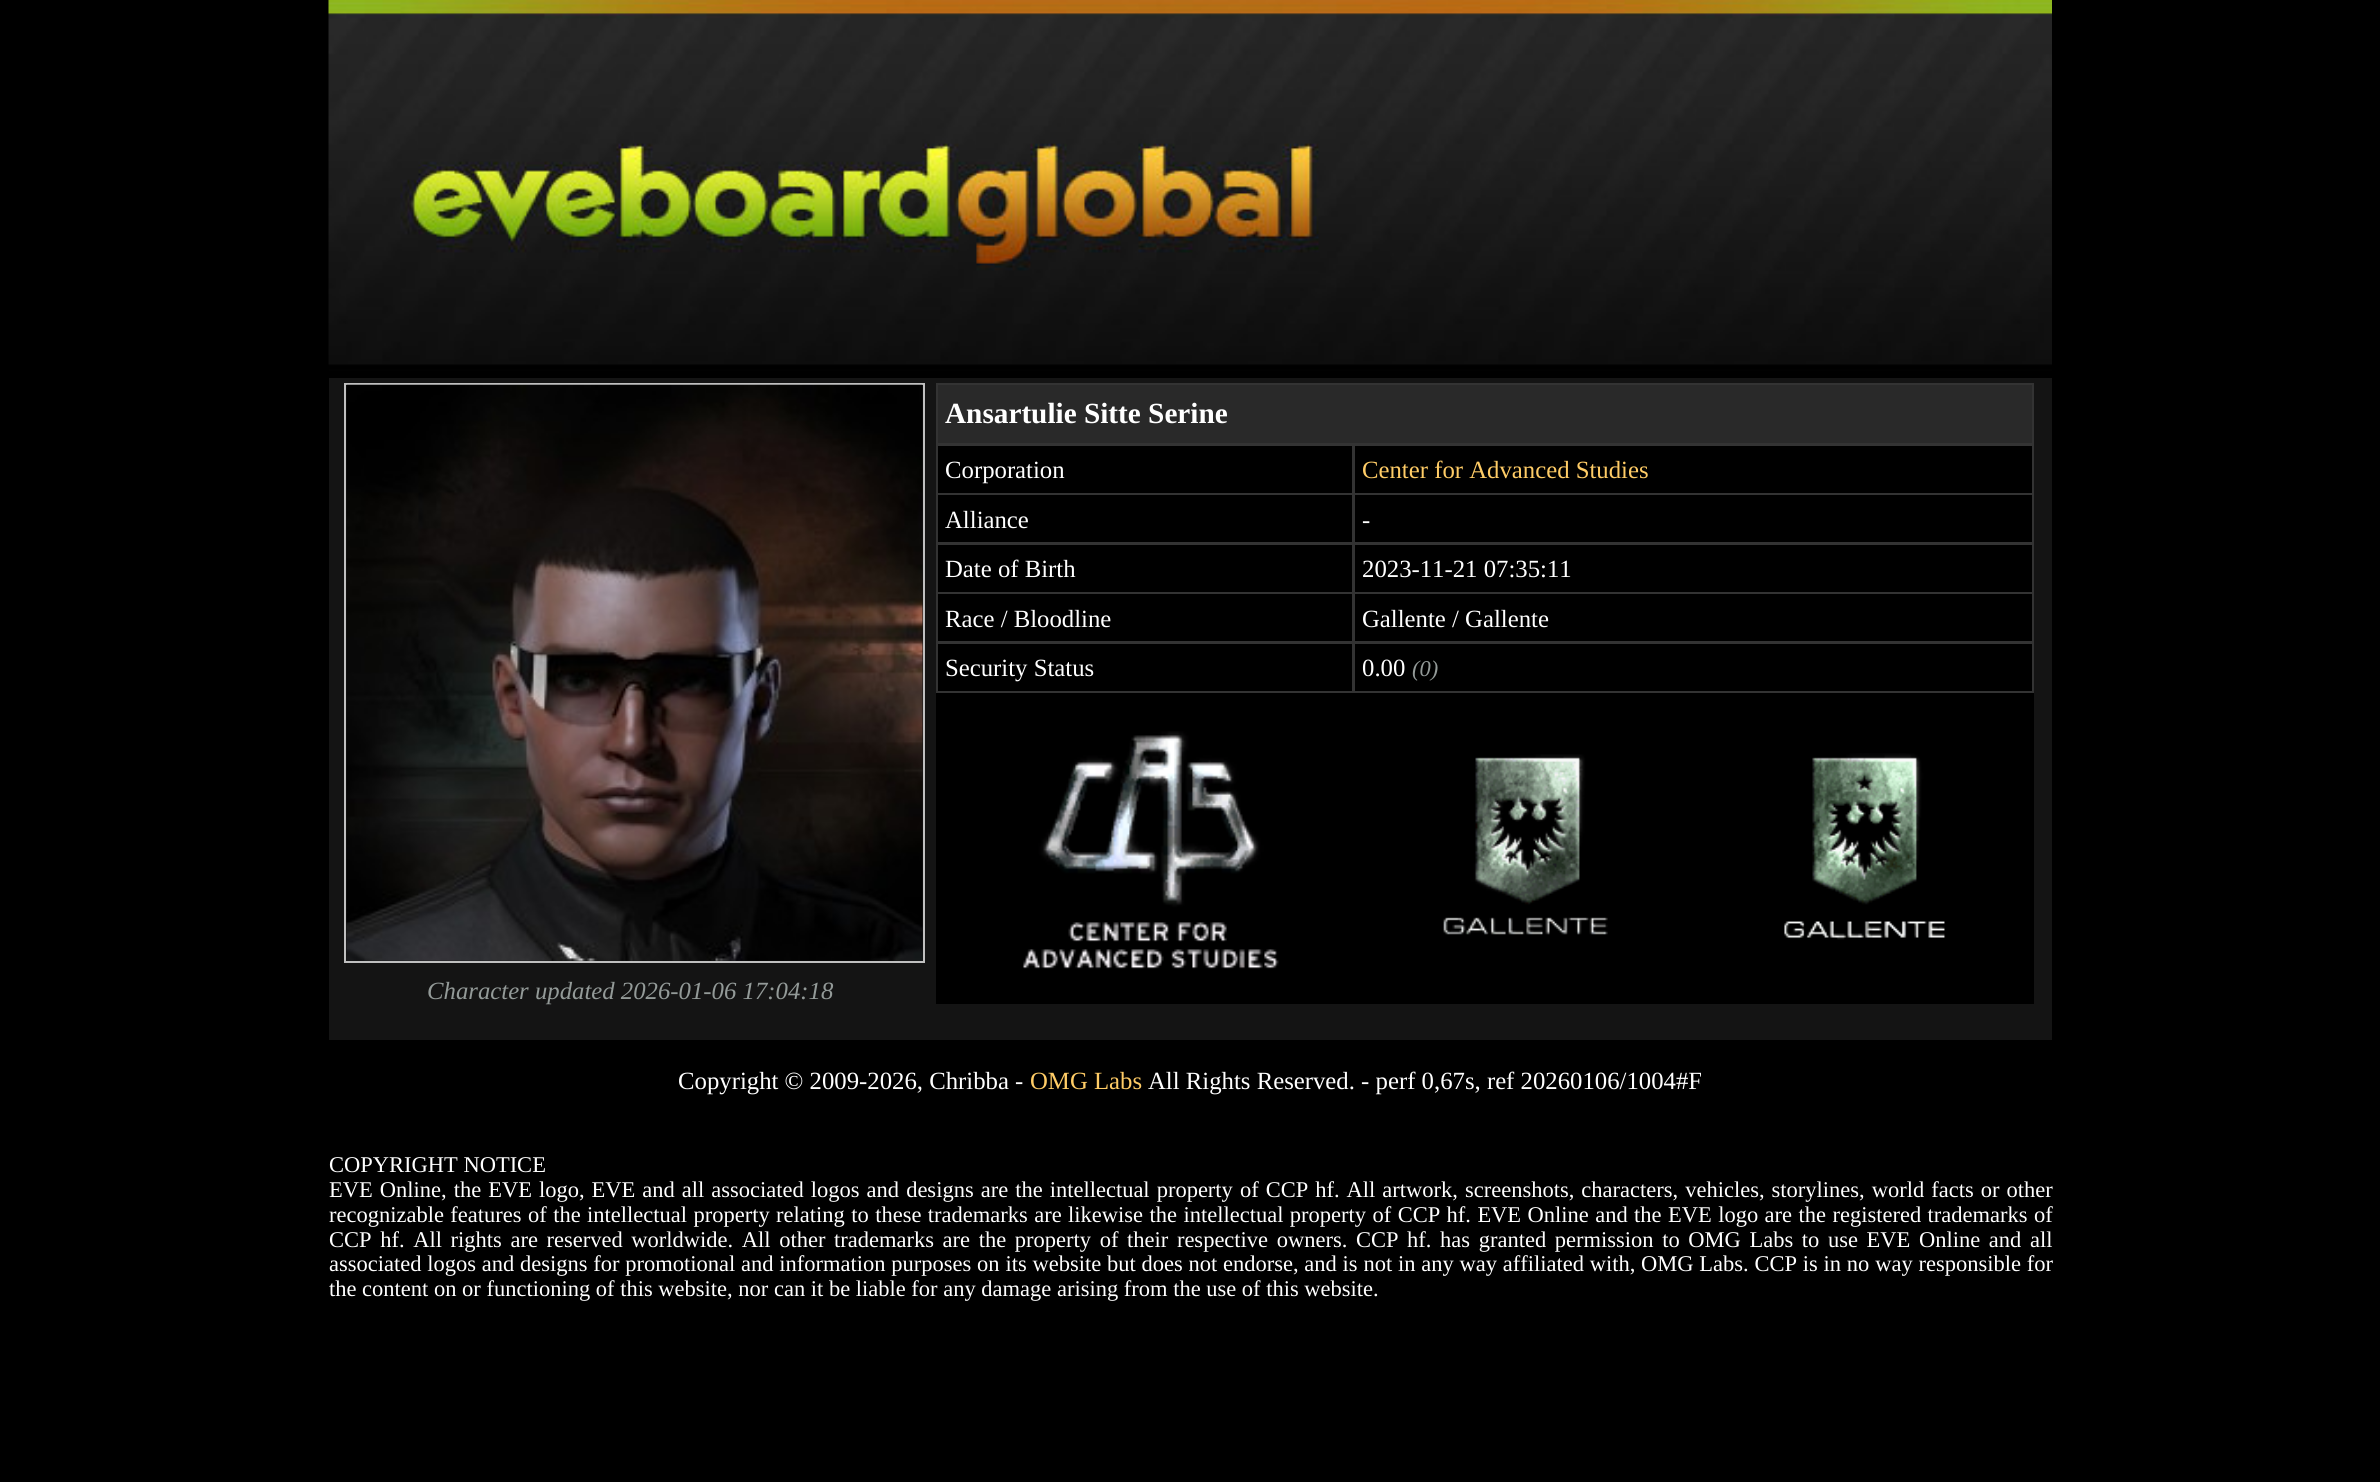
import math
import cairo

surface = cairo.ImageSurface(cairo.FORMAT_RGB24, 2380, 1482)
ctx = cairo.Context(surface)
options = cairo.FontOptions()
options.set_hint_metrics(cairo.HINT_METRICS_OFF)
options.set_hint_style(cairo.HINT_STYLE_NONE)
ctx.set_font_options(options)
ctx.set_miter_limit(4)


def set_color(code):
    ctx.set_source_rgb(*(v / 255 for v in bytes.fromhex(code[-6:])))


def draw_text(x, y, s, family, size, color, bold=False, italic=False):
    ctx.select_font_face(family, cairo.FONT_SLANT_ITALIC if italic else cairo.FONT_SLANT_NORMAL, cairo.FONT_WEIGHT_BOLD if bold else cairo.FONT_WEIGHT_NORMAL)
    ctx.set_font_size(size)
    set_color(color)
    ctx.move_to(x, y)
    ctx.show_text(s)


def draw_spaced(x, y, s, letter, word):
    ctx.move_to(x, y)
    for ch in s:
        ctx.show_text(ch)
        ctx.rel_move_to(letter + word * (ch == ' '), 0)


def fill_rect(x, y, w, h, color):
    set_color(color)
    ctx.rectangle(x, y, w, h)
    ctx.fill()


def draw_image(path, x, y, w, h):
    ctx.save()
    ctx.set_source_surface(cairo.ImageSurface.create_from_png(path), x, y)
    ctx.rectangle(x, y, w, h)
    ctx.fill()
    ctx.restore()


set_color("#000000")
ctx.paint()
fill_rect(329, 378, 1723, 5, "#141414")
draw_image("assets/img1.png", 328, 0, 1724, 378)
fill_rect(329, 383, 1723, 630, "#141414")
fill_rect(936, 383, 1098, 310, "#333333")
fill_rect(938, 385, 1094, 58, "#292929")
draw_text(945, 423, "Ansartulie Sitte Serine", "Liberation Serif", 29.25, "#ffffff", bold=True)
fill_rect(938, 446, 414, 47, "#000000")
draw_text(945, 478, "Corporation", "Liberation Serif", 24.75, "#ffffff")
fill_rect(1355, 446, 677, 47, "#000000")
draw_text(1362, 478, "Center for Advanced Studies", "Liberation Serif", 24.75, "#ffcc66")
fill_rect(938, 495, 414, 47, "#000000")
draw_text(945, 528, "Alliance", "Liberation Serif", 24.75, "#ffffff")
fill_rect(1355, 495, 677, 47, "#000000")
draw_text(1362, 528, "-", "Liberation Serif", 24.75, "#ffffff")
fill_rect(938, 545, 414, 47, "#000000")
draw_text(945, 577, "Date of Birth", "Liberation Serif", 24.75, "#ffffff")
fill_rect(1355, 545, 677, 47, "#000000")
draw_text(1362, 577, "2023-11-21 07:35:11", "Liberation Serif", 24.75, "#ffffff")
fill_rect(938, 594, 414, 47, "#000000")
draw_text(945, 627, "Race / Bloodline", "Liberation Serif", 24.75, "#ffffff")
fill_rect(1355, 594, 677, 47, "#000000")
draw_text(1362, 627, "Gallente / Gallente", "Liberation Serif", 24.75, "#ffffff")
fill_rect(938, 644, 414, 47, "#000000")
draw_text(945, 676, "Security Status", "Liberation Serif", 24.75, "#ffffff")
fill_rect(1355, 644, 677, 47, "#000000")
draw_text(1362, 676, "0.00", "Liberation Serif", 24.75, "#ffffff")
draw_text(1412, 676, "(0)", "Liberation Serif", 22.5, "#939a98", italic=True)
fill_rect(936, 693, 1098, 311, "#000000")
draw_image("assets/img2.png", 1022, 731, 257, 238)
draw_image("assets/img3.png", 1443, 754, 165, 181)
draw_image("assets/img4.png", 1784, 753, 162, 187)
ctx.rectangle(345, 384, 579, 578)
set_color("#c0c0c0")
ctx.stroke()
draw_image("assets/img5.png", 346, 384, 577, 577)
draw_text(427, 999, "Character updated 2026-01-06 17:04:18", "Liberation Serif", 24.75, "#939a98", italic=True)
fill_rect(329, 1013, 1723, 27, "#141414")
draw_text(678, 1089, "Copyright © 2009-2026, Chribba -", "Liberation Serif", 24.75, "#ffffff")
draw_text(1030, 1089, "OMG Labs", "Liberation Serif", 24.75, "#ffcc66")
draw_text(1148, 1089, "All Rights Reserved. - perf 0,67s, ref 20260106/1004#F", "Liberation Serif", 24.75, "#ffffff")
draw_text(329, 1172, "COPYRIGHT NOTICE", "Liberation Serif", 22.5, "#ffffff")
draw_spaced(329, 1197, "EVE Online, the EVE logo, EVE and all associated logos and designs are the intellectual property of CCP hf. All artwork, screenshots, characters, vehicles, storylines, world facts or other", 0, 1.4)
draw_spaced(329, 1222, "recognizable features of the intellectual property relating to these trademarks are likewise the intellectual property of CCP hf. EVE Online and the EVE logo are the registered trademarks of", 0, 0.8)
draw_spaced(329, 1247, "CCP hf. All rights are reserved worldwide. All other trademarks are the property of their respective owners. CCP hf. has granted permission to OMG Labs to use EVE Online and all", 0, 3)
draw_spaced(329, 1271, "associated logos and designs for promotional and information purposes on its website but does not endorse, and is not in any way affiliated with, OMG Labs. CCP is in no way responsible for", 0, 0.15)
draw_text(329, 1296, "the content on or functioning of this website, nor can it be liable for any damage arising from the use of this website.", "Liberation Serif", 22.5, "#ffffff")
surface.write_to_png("output.png")
